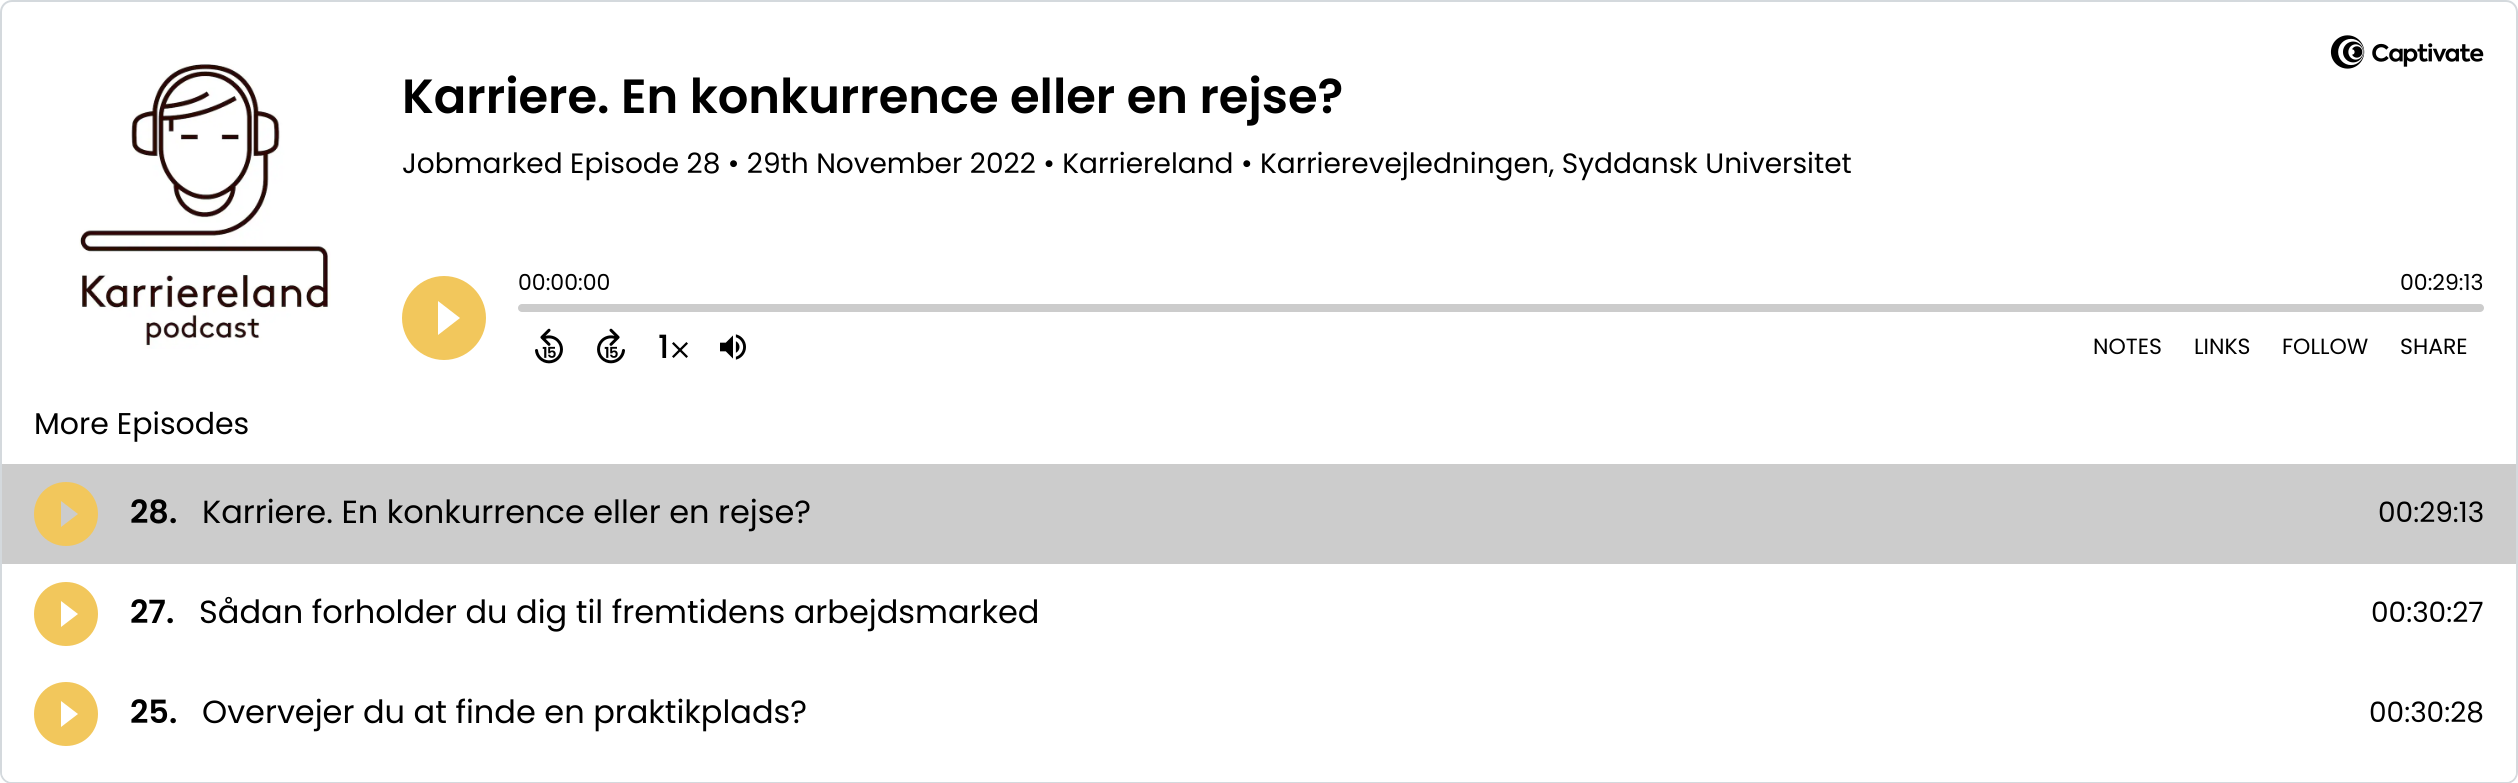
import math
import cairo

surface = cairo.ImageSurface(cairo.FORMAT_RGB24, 2518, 783)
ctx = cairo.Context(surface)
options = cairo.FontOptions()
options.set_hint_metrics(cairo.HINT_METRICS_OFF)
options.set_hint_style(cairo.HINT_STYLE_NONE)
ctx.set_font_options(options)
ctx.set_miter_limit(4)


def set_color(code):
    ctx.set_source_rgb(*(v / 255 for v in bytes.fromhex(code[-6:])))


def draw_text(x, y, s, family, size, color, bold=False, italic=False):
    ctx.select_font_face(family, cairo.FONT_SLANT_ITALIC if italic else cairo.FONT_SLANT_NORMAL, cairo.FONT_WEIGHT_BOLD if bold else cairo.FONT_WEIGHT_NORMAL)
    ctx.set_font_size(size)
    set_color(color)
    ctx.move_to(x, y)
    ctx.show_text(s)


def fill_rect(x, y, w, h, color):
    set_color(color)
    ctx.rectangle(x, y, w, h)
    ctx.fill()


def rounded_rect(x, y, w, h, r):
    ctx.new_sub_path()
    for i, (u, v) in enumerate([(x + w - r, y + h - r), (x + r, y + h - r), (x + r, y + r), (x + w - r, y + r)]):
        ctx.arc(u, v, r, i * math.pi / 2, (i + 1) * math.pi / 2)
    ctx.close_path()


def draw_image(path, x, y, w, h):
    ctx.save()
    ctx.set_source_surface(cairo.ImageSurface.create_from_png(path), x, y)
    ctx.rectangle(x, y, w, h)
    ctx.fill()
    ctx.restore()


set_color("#ffffff")
ctx.paint()
rounded_rect(1, 1, 2516, 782, 11)
set_color("#d4d9dd")
ctx.stroke()
draw_image("assets/img1.png", 2330, 35, 154, 34)
draw_image("assets/img2.png", 79, 64, 252, 285)
draw_text(402, 113, "Karriere. En konkurrence eller en rejse?", "Poppins SemiBold", 48, "#000000")
draw_text(402, 173, "Jobmarked Episode 28 • 29th November 2022 • Karriereland • Karrierevejledningen, Syddansk Universitet", "Poppins", 28, "#000000")
set_color("#f2c75c")
ctx.set_fill_rule(cairo.FILL_RULE_EVEN_ODD)
ctx.new_path()
ctx.move_to(444, 360)
ctx.curve_to(467, 360, 486, 341, 486, 318)
ctx.curve_to(486, 295, 467, 276, 444, 276)
ctx.curve_to(421, 276, 402, 295, 402, 318)
ctx.curve_to(402, 341, 421, 360, 444, 360)
ctx.close_path()
ctx.move_to(438, 335)
ctx.line_to(460, 318)
ctx.line_to(438, 301)
ctx.close_path()
ctx.fill()
draw_text(518, 290, "00:00:00", "Poppins", 22, "#000000")
draw_text(2400, 290, "00:29:13", "Poppins", 22, "#000000")
set_color("#cccccc")
rounded_rect(518, 304, 1966, 8, 4)
ctx.fill()
draw_image("assets/img3.png", 535, 328, 28, 36)
draw_image("assets/img4.png", 597, 328, 28, 36)
draw_text(658, 358, "1", "Poppins Medium", 32, "#000000")
draw_image("assets/img5.png", 672, 342, 16, 16)
draw_image("assets/img6.png", 720, 334, 26, 26)
draw_text(2093, 354, "NOTES", "Poppins", 22, "#000000")
draw_text(2194, 354, "LINKS", "Poppins", 22, "#000000")
draw_text(2282, 354, "FOLLOW", "Poppins", 22, "#000000")
draw_text(2400, 354, "SHARE", "Poppins", 22, "#000000")
set_color("#ffffff")
ctx.new_path()
ctx.move_to(2, 402)
ctx.line_to(2516, 402)
ctx.line_to(2516, 772)
ctx.curve_to(2516, 777.5, 2511.5, 782, 2506, 782)
ctx.line_to(12, 782)
ctx.curve_to(6.5, 782, 2, 777.5, 2, 772)
ctx.close_path()
ctx.fill()
draw_text(34, 434, "More Episodes", "Poppins", 30, "#000000")
fill_rect(2, 464, 2514, 100, "#cccccc")
set_color("#f2c75c")
ctx.new_path()
ctx.move_to(66, 546)
ctx.curve_to(84, 546, 98, 532, 98, 514)
ctx.curve_to(98, 496, 84, 482, 66, 482)
ctx.curve_to(48, 482, 34, 496, 34, 514)
ctx.curve_to(34, 532, 48, 546, 66, 546)
ctx.close_path()
ctx.move_to(61, 527)
ctx.line_to(78, 514)
ctx.line_to(61, 501)
ctx.close_path()
ctx.fill()
draw_text(130, 523, "28.", "Poppins SemiBold", 32, "#000000")
draw_text(202, 523, "Karriere. En konkurrence eller en rejse?", "Poppins", 32, "#000000")
draw_text(2378, 522, "00:29:13", "Poppins", 28, "#000000")
set_color("#f2c75c")
ctx.new_path()
ctx.move_to(66, 646)
ctx.curve_to(84, 646, 98, 632, 98, 614)
ctx.curve_to(98, 596, 84, 582, 66, 582)
ctx.curve_to(48, 582, 34, 596, 34, 614)
ctx.curve_to(34, 632, 48, 646, 66, 646)
ctx.close_path()
ctx.move_to(61, 627)
ctx.line_to(78, 614)
ctx.line_to(61, 601)
ctx.close_path()
ctx.fill()
draw_text(130, 623, "27.", "Poppins SemiBold", 32, "#000000")
draw_text(199, 623, "Sådan forholder du dig til fremtidens arbejdsmarked", "Poppins", 32, "#000000")
draw_text(2371, 622, "00:30:27", "Poppins", 28, "#000000")
set_color("#f2c75c")
ctx.new_path()
ctx.move_to(66, 746)
ctx.curve_to(84, 746, 98, 732, 98, 714)
ctx.curve_to(98, 696, 84, 682, 66, 682)
ctx.curve_to(48, 682, 34, 696, 34, 714)
ctx.curve_to(34, 732, 48, 746, 66, 746)
ctx.close_path()
ctx.move_to(61, 727)
ctx.line_to(78, 714)
ctx.line_to(61, 701)
ctx.close_path()
ctx.fill()
draw_text(130, 723, "25.", "Poppins SemiBold", 32, "#000000")
draw_text(202, 723, "Overvejer du at finde en praktikplads?", "Poppins", 32, "#000000")
draw_text(2369, 722, "00:30:28", "Poppins", 28, "#000000")
surface.write_to_png("output.png")
